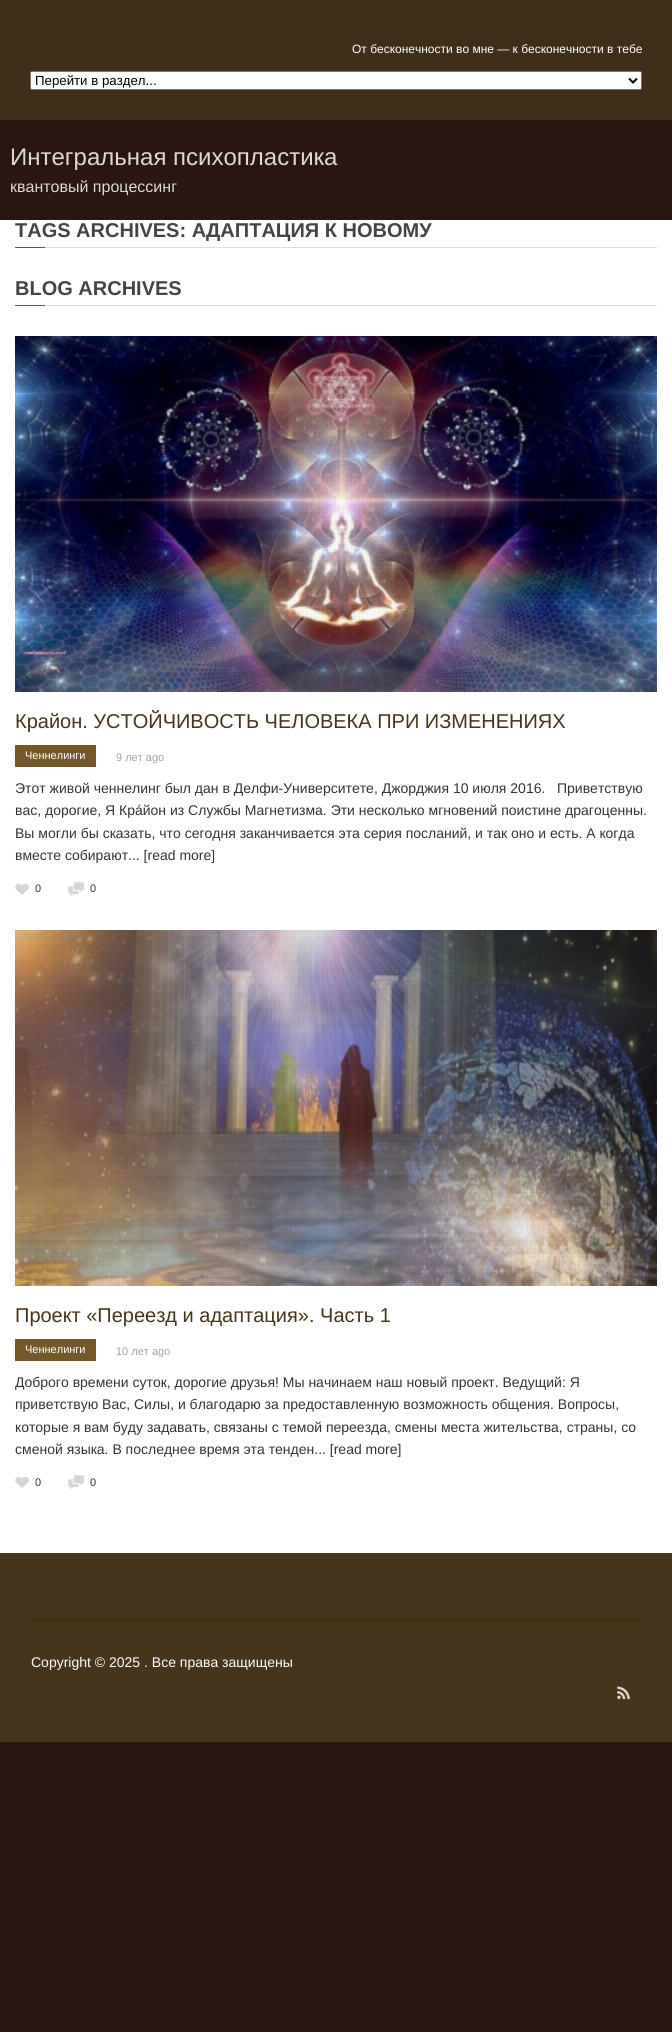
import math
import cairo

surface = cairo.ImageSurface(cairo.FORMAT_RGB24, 672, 2032)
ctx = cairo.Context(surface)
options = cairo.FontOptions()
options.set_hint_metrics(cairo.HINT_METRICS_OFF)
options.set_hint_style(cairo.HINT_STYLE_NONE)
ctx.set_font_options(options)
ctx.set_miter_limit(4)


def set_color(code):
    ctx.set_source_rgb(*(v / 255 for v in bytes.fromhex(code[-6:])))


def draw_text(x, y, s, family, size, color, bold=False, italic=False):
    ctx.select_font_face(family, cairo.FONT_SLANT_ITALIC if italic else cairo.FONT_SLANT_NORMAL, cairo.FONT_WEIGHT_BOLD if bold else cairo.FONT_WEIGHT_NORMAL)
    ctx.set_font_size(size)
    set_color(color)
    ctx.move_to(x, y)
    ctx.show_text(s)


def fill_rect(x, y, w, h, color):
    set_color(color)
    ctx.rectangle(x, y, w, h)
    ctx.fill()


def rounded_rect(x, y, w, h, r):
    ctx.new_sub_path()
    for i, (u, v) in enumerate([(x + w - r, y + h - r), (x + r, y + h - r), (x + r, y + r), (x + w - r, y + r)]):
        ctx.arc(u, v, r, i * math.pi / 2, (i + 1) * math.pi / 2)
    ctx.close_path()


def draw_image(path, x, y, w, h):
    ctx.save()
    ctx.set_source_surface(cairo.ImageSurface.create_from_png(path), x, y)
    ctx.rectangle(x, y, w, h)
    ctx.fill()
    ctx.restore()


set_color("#2a1510")
ctx.paint()
fill_rect(0, 0, 672, 120, "#402f18")
draw_text(352, 53, "От бесконечности во мне — к бесконечности в тебе", "Liberation Sans", 12, "#ffffff")
rounded_rect(30.5, 71.5, 611, 18, 1.5)
ctx.fill_preserve()
set_color("#767676")
ctx.set_line_width(1)
ctx.stroke()
ctx.new_path()
ctx.move_to(629, 78.5)
ctx.line_to(633, 82.5)
ctx.line_to(637, 78.5)
set_color("#000000")
ctx.set_line_width(2)
ctx.stroke()
draw_text(35, 85, "Перейти в раздел...", "Liberation Sans", 13.25, "#000000")
draw_text(10, 165, "Интегральная психопластика", "Liberation Sans", 24, "#dcd9d9")
draw_text(10, 192, "квантовый процессинг", "Liberation Sans", 16, "#dcd9d9")
fill_rect(0, 220, 672, 1333, "#ffffff")
draw_text(15, 237, "TAGS ARCHIVES: АДАПТАЦИЯ К НОВОМУ", "Liberation Sans", 20, "#444444", bold=True)
fill_rect(45, 247, 612, 1, "#dddede")
fill_rect(15, 247, 30, 1, "#a93064")
draw_text(15, 295, "BLOG ARCHIVES", "Liberation Sans", 20, "#444444", bold=True)
fill_rect(45, 305, 612, 1, "#dddede")
fill_rect(15, 305, 30, 1, "#a93064")
draw_image("assets/img1.png", 15, 336, 642, 356)
draw_image("assets/img2.png", 15, 336, 641, 355)
draw_text(15, 728, "Крайон. УСТОЙЧИВОСТЬ ЧЕЛОВЕКА ПРИ ИЗМЕНЕНИЯХ", "Liberation Sans", 20, "#46351a")
fill_rect(15, 745, 81, 22, "#75592b")
draw_text(25, 759, "Ченнелинги", "Liberation Sans", 11, "#ffffff")
draw_text(116, 761, "9 лет ago", "Liberation Sans", 11, "#a3a3a3")
draw_text(15, 793, "Этот живой ченнелинг был дан в Делфи-Университете, Джорджия 10 июля 2016.", "Liberation Sans", 14, "#343434")
draw_text(557, 793, "Приветствую", "Liberation Sans", 14, "#343434")
draw_text(15, 815, "вас, дорогие, Я Крáйон из Службы Магнетизма. Эти несколько мгновений поистине драгоценны.", "Liberation Sans", 14, "#343434")
draw_text(15, 838, "Вы могли бы сказать, что сегодня заканчивается эта серия посланий, и так оно и есть. А когда", "Liberation Sans", 14, "#343434")
draw_text(15, 860, "вместе собирают... [read more]", "Liberation Sans", 14, "#343434")
draw_image("assets/img3.png", 15, 883, 14, 12)
draw_text(35, 892, "0", "Liberation Sans", 11, "#343434")
draw_image("assets/img4.png", 68, 882, 17, 15)
draw_text(90, 892, "0", "Liberation Sans", 11, "#343434")
draw_image("assets/img5.png", 15, 930, 642, 356)
draw_image("assets/img6.png", 15, 930, 641, 355)
draw_text(15, 1322, "Проект «Переезд и адаптация». Часть 1", "Liberation Sans", 20, "#46351a")
fill_rect(15, 1339, 81, 22, "#75592b")
draw_text(25, 1353, "Ченнелинги", "Liberation Sans", 11, "#ffffff")
draw_text(116, 1355, "10 лет ago", "Liberation Sans", 11, "#a3a3a3")
draw_text(15, 1387, "Доброго времени суток, дорогие друзья! Мы начинаем наш новый проект. Ведущий: Я", "Liberation Sans", 14, "#343434")
draw_text(15, 1409, "приветствую Вас, Силы, и благодарю за предоставленную возможность общения. Вопросы,", "Liberation Sans", 14, "#343434")
draw_text(15, 1432, "которые я вам буду задавать, связаны с темой переезда, смены места жительства, страны, со", "Liberation Sans", 14, "#343434")
draw_text(15, 1454, "сменой языка. В последнее время эта тенден... [read more]", "Liberation Sans", 14, "#343434")
draw_image("assets/img3.png", 15, 1476, 14, 12)
draw_text(35, 1486, "0", "Liberation Sans", 11, "#343434")
draw_image("assets/img4.png", 68, 1475, 17, 15)
draw_text(90, 1486, "0", "Liberation Sans", 11, "#343434")
fill_rect(0, 1553, 672, 189, "#46351a")
fill_rect(31, 1619, 610, 1, "#272a32")
draw_text(31, 1667, "Copyright © 2025 . Все права защищены", "Liberation Sans", 14, "#ffffff")
draw_image("assets/img7.png", 617, 1686, 13, 14)
surface.write_to_png("output.png")
